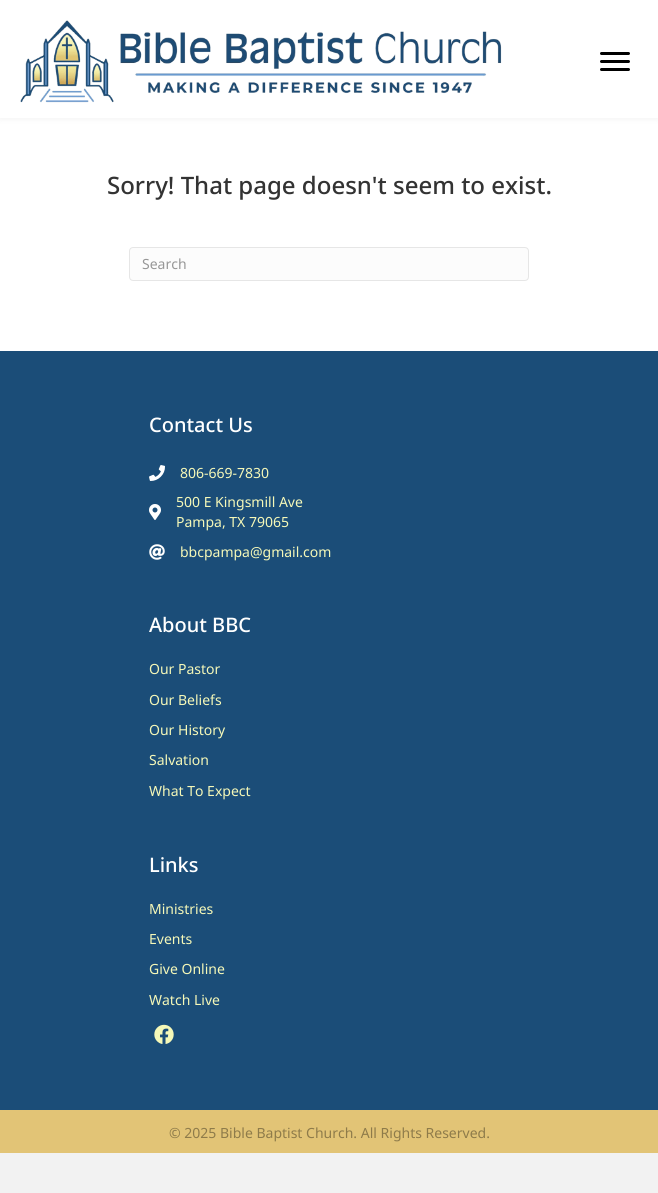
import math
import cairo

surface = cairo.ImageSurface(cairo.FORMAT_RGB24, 658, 1193)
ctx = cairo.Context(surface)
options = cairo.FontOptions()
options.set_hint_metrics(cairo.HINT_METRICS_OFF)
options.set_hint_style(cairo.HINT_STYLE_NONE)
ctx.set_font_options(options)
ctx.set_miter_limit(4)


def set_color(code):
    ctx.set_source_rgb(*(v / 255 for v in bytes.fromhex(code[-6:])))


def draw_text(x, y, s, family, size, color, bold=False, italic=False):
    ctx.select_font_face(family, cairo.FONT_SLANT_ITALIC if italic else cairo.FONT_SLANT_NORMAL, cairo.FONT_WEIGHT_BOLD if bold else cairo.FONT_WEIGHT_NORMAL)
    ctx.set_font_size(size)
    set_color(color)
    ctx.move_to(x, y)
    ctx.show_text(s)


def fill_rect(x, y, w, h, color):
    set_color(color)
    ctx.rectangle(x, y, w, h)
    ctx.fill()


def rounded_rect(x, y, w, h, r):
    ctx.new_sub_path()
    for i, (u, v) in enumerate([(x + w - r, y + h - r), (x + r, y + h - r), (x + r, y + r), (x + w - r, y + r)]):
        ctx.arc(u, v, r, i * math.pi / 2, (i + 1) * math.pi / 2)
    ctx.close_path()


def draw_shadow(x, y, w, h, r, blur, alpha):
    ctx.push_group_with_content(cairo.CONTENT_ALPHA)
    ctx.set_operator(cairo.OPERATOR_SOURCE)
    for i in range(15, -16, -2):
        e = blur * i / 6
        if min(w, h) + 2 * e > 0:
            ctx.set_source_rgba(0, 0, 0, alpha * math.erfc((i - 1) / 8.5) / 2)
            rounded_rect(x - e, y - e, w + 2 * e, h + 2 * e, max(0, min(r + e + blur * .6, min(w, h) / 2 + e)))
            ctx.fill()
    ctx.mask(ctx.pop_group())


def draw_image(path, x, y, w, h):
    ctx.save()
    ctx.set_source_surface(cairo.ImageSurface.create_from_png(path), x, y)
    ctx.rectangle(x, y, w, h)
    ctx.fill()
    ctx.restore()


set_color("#f2f2f2")
ctx.paint()
fill_rect(0, 118, 658, 233, "#ffffff")
set_color("#000000")
draw_shadow(0, 0, 658, 118, 0, 4, 0.07)
fill_rect(0, 0, 658, 118, "#ffffff")
draw_image("assets/img1.png", 20, 20, 482, 83)
set_color("#000000")
rounded_rect(600, 60, 30, 3, 1.5)
ctx.fill()
rounded_rect(600, 52, 30, 3, 1.5)
ctx.fill()
rounded_rect(600, 68, 30, 3, 1.5)
ctx.fill()
draw_text(107, 194, "Sorry! That page doesn't seem to exist.", "Noto Sans Medium", 24, "#333333")
set_color("#fcfcfc")
rounded_rect(129.5, 247.5, 399, 33, 3.5)
ctx.fill_preserve()
set_color("#e6e6e6")
ctx.set_line_width(1)
ctx.stroke()
draw_text(142, 269, "Search", "Noto Sans", 14, "#979797")
fill_rect(0, 351, 658, 759, "#1b4d78")
draw_text(149, 432, "Contact Us", "Noto Sans Medium", 20, "#ffffff")
draw_image("assets/img2.png", 149, 465, 16, 16)
draw_text(180, 478, "806-669-7830", "Noto Sans", 14, "#f5f8b8")
draw_image("assets/img3.png", 149, 504, 12, 16)
draw_text(176, 507, "500 E Kingsmill Ave", "Noto Sans", 14, "#f5f8b8")
draw_text(176, 527, "Pampa, TX 79065", "Noto Sans", 14, "#f5f8b8")
draw_image("assets/img4.png", 149, 544, 16, 16)
draw_text(180, 557, "bbcpampa@gmail.com", "Noto Sans", 14, "#f5f8b8")
draw_text(149, 632, "About BBC", "Noto Sans Medium", 20, "#ffffff")
draw_text(149, 674, "Our Pastor", "Noto Sans", 14, "#f5f8b8")
draw_text(149, 705, "Our Beliefs", "Noto Sans", 14, "#f5f8b8")
draw_text(149, 735, "Our History", "Noto Sans", 14, "#f5f8b8")
draw_text(149, 765, "Salvation", "Noto Sans", 14, "#f5f8b8")
draw_text(149, 796, "What To Expect", "Noto Sans", 14, "#f5f8b8")
draw_text(149, 872, "Links", "Noto Sans Medium", 20, "#ffffff")
draw_text(149, 914, "Ministries", "Noto Sans", 14, "#f5f8b8")
draw_text(149, 944, "Events", "Noto Sans", 14, "#f5f8b8")
draw_text(149, 974, "Give Online", "Noto Sans", 14, "#f5f8b8")
draw_text(149, 1005, "Watch Live", "Noto Sans", 14, "#f5f8b8")
draw_image("assets/img5.png", 154, 1024, 20, 20)
fill_rect(0, 1110, 658, 43, "#e2c476")
draw_text(169, 1138, "© 2025 Bible Baptist Church. All Rights Reserved.", "Noto Sans", 14, "#8e7b4a")
surface.write_to_png("output.png")
